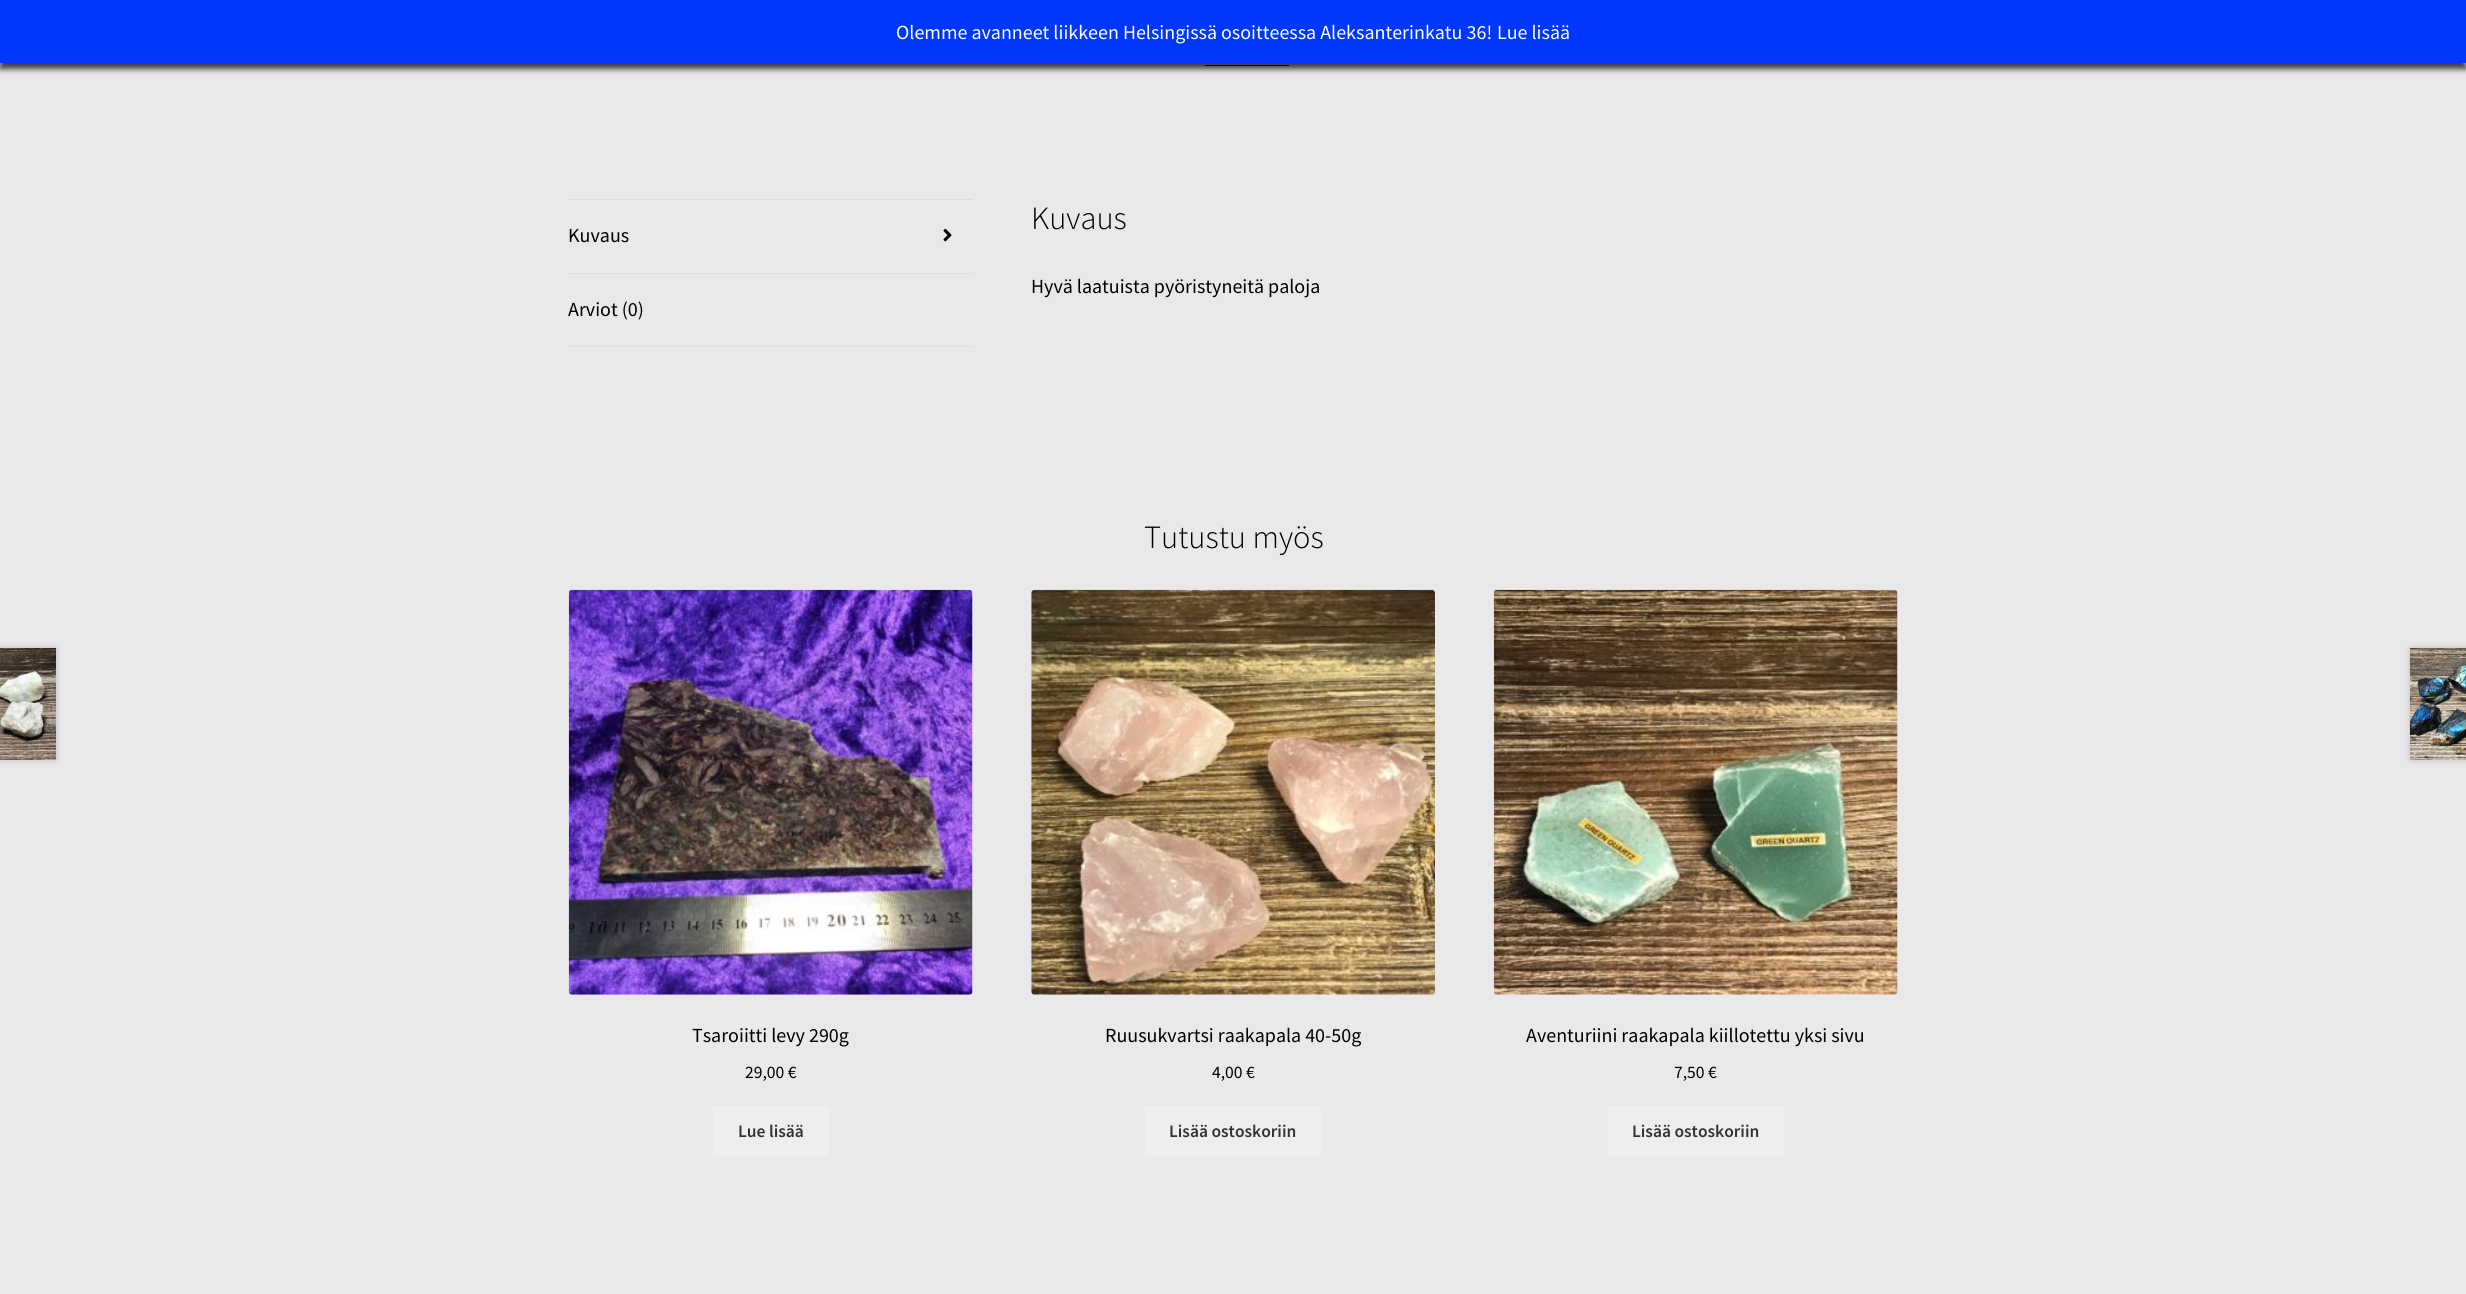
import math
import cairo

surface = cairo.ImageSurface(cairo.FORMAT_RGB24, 2466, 1294)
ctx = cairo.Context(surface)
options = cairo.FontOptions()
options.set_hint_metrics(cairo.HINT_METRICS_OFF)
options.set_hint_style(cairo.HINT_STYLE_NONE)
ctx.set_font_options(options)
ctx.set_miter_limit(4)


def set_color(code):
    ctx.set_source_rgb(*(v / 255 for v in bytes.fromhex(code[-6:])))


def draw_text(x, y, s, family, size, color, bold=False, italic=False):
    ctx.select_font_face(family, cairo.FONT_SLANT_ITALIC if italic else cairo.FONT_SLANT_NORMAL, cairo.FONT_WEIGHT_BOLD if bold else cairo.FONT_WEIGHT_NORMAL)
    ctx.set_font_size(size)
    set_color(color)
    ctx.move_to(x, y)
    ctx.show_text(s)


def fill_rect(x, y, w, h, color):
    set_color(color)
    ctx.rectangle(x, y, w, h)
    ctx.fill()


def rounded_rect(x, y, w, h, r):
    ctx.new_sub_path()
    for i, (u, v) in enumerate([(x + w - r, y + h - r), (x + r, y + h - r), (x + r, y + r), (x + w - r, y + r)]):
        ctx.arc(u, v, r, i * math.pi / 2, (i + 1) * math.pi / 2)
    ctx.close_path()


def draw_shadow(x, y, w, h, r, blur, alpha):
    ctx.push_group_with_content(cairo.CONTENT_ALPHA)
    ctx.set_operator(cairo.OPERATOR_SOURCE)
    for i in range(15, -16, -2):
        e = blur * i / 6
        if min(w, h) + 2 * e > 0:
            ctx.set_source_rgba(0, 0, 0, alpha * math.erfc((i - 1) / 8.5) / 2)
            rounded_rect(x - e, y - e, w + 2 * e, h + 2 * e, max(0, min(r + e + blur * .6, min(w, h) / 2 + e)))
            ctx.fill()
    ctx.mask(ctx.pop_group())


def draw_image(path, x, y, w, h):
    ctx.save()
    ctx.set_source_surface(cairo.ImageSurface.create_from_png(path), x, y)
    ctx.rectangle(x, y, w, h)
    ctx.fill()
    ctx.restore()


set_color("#e9e9eb")
ctx.paint()
fill_rect(1205, 65, 84, 1, "#050505")
set_color("#000000")
draw_shadow(0, 6, 2466, 63, 0, 3, 0.75)
fill_rect(0, 0, 2466, 63, "#0037ff")
draw_text(896, 39, "Olemme avanneet liikkeen Helsingissä osoitteessa Aleksanterinkatu 36!", "Source Sans Pro", 20, "#ffffff")
draw_text(1497, 39, "Lue lisää", "Source Sans Pro", 20, "#ffffff")
fill_rect(569, 199, 404, 1, "#dddddf")
fill_rect(569, 273, 404, 1, "#dddddf")
draw_text(568, 242, "Kuvaus", "Source Sans Pro", 20, "#000000")
draw_image("assets/img1.png", 943, 228, 9, 14)
fill_rect(569, 346, 404, 1, "#dddddf")
draw_text(568, 316, "Arviot (0)", "Source Sans Pro", 20, "#000000")
draw_text(1031, 229, "Kuvaus", "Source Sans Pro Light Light", 32.5, "#000000")
draw_text(1031, 293, "Hyvä laatuista pyöristyneitä paloja", "Source Sans Pro", 20, "#000000")
draw_text(1144, 548, "Tutustu myös", "Source Sans Pro Light Light", 32.5, "#000000")
draw_image("assets/img2.png", 568, 589, 405, 406)
draw_text(692, 1042, "Tsaroiitti levy 290g", "Source Sans Pro", 20, "#000000")
draw_text(745, 1078, "29,00 €", "Source Sans Pro", 17.5, "#000000")
fill_rect(713, 1106, 116, 50, "#eeeeee")
draw_text(738, 1137, "Lue lisää", "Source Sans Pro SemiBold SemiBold", 17.5, "#333333")
draw_image("assets/img3.png", 1031, 589, 404, 406)
draw_text(1105, 1042, "Ruusukvartsi raakapala 40-50g", "Source Sans Pro", 20, "#000000")
draw_text(1212, 1078, "4,00 €", "Source Sans Pro", 17.5, "#000000")
fill_rect(1145, 1106, 176, 50, "#eeeeee")
draw_text(1169, 1137, "Lisää ostoskoriin", "Source Sans Pro SemiBold SemiBold", 17.5, "#333333")
draw_image("assets/img4.png", 1493, 589, 405, 406)
draw_text(1526, 1042, "Aventuriini raakapala kiillotettu yksi sivu", "Source Sans Pro", 20, "#000000")
draw_text(1674, 1078, "7,50 €", "Source Sans Pro", 17.5, "#000000")
fill_rect(1608, 1106, 176, 50, "#eeeeee")
draw_text(1632, 1137, "Lisää ostoskoriin", "Source Sans Pro SemiBold SemiBold", 17.5, "#333333")
set_color("#000000")
draw_shadow(-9, 648, 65, 112, 0, 3, 0.2)
draw_image("assets/img5.png", 0, 648, 56, 112)
draw_shadow(2410, 648, 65, 112, 0, 3, 0.2)
draw_image("assets/img6.png", 2410, 648, 56, 112)
surface.write_to_png("output.png")
